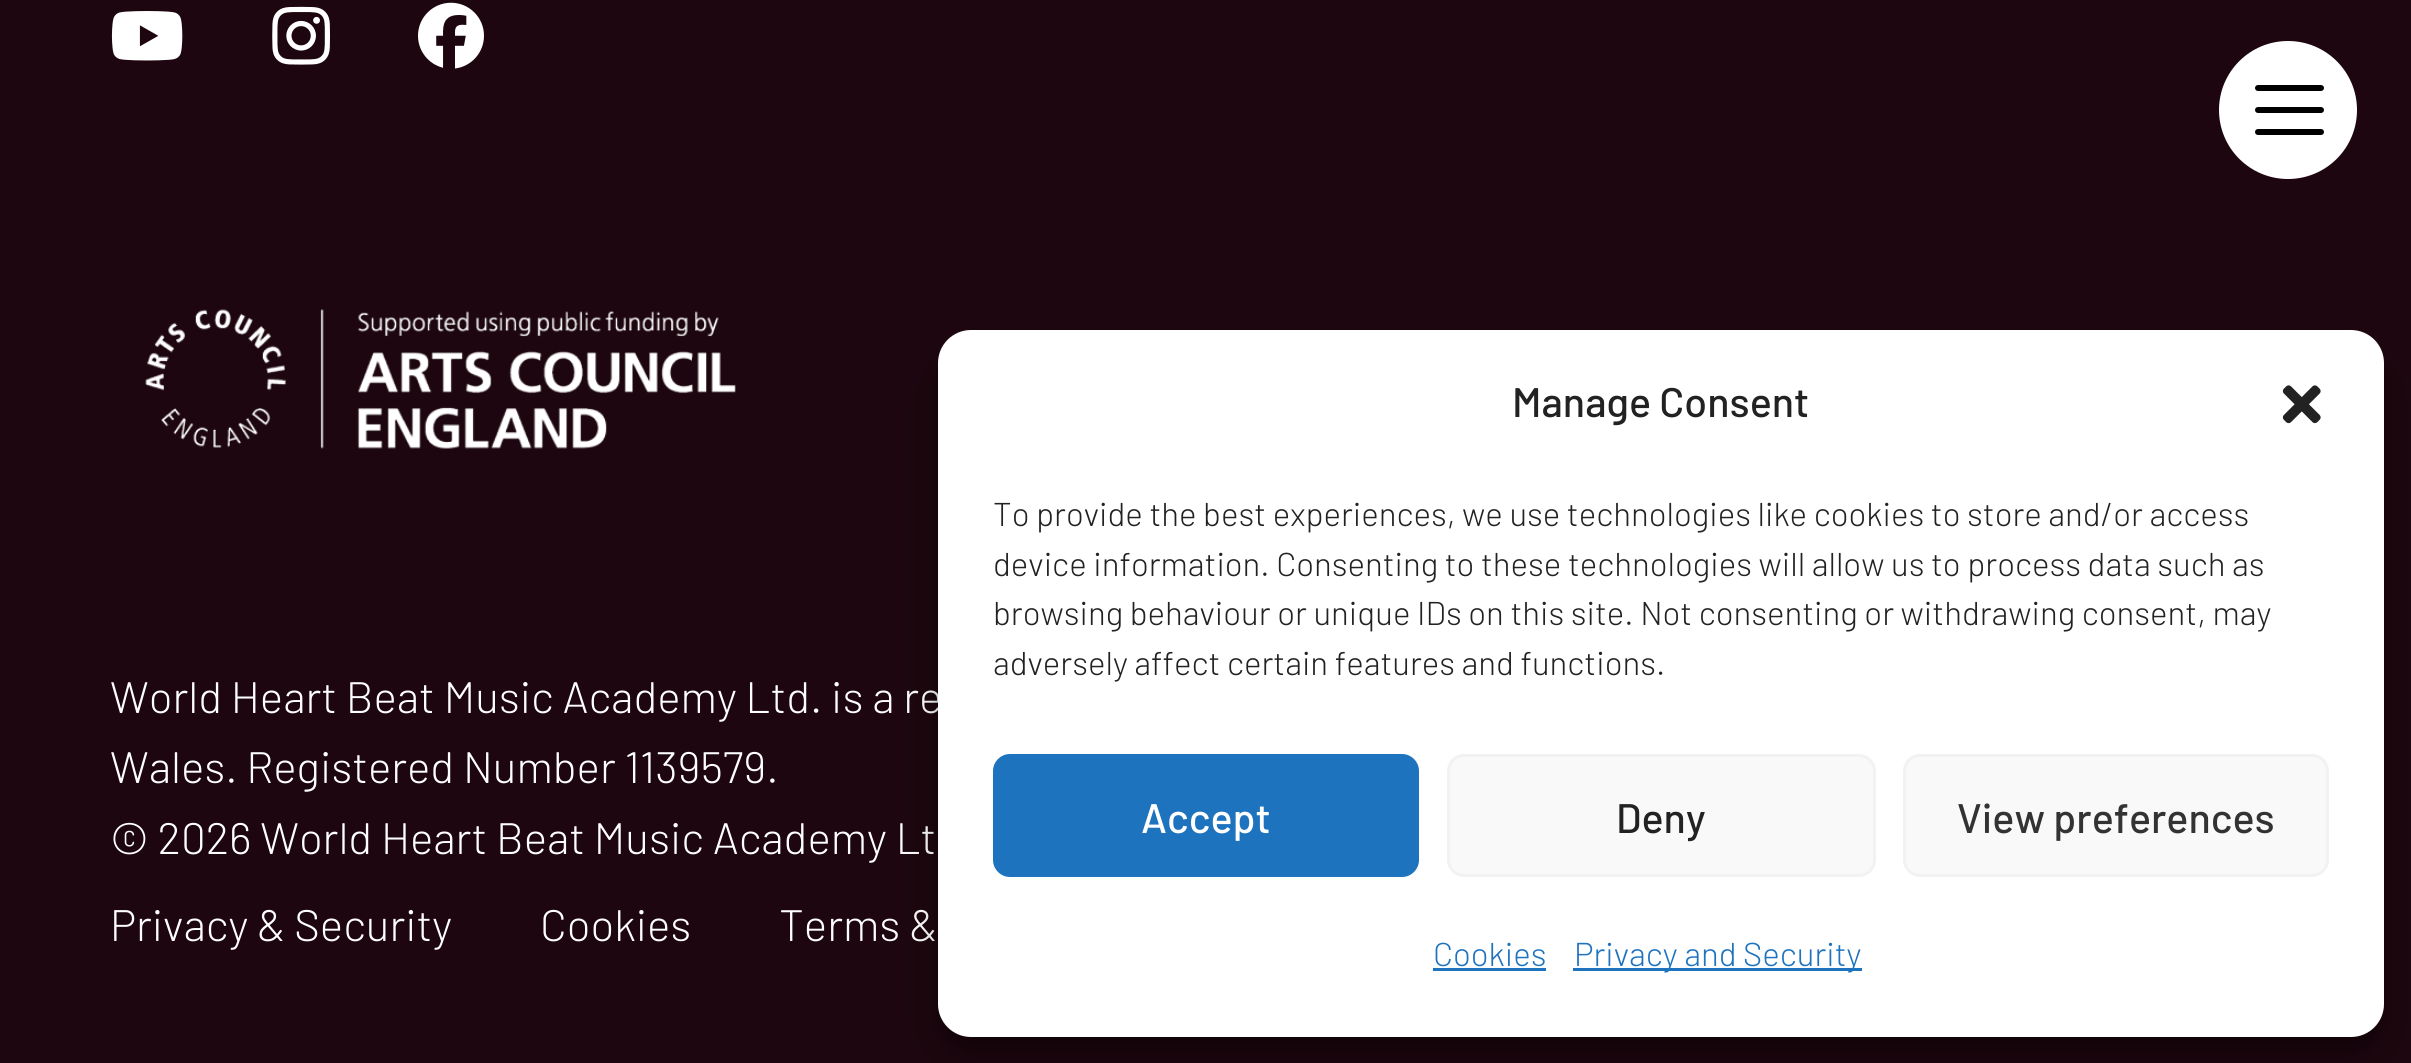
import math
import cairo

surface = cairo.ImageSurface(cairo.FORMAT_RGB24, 2411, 1063)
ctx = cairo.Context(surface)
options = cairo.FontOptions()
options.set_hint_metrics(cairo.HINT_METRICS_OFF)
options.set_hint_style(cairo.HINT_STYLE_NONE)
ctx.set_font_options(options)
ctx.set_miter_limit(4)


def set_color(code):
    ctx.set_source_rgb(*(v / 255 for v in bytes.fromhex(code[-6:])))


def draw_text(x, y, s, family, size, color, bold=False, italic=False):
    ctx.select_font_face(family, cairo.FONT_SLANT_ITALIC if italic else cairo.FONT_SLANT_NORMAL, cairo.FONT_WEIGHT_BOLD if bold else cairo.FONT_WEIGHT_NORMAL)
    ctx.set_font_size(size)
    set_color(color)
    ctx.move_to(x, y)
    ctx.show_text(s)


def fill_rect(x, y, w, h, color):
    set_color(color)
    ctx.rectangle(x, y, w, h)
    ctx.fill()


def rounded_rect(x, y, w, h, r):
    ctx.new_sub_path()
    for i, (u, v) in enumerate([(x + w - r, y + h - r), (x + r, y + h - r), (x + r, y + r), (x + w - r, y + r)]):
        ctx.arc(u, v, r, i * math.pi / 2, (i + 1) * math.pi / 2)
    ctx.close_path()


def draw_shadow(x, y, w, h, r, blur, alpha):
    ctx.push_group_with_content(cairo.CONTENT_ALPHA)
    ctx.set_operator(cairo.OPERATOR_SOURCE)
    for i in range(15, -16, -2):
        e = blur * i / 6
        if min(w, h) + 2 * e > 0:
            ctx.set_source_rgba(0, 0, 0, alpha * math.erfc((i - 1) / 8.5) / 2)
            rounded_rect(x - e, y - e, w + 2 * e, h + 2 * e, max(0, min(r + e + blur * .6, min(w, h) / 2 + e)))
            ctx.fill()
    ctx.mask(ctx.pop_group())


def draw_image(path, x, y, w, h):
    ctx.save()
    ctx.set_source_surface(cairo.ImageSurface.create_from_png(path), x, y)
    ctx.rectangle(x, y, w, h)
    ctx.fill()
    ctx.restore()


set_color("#1d060f")
ctx.paint()
set_color("#ffffff")
ctx.arc(2288, 110, 69, 0, 2 * math.pi)
ctx.fill()
set_color("#000000")
rounded_rect(2255, 107, 69, 6, 3)
ctx.fill()
rounded_rect(2255, 85, 69, 6, 3)
ctx.fill()
rounded_rect(2255, 129, 69, 6, 3)
ctx.fill()
draw_image("assets/img1.png", 111, 11, 72, 50)
draw_image("assets/img2.png", 272, 6, 58, 59)
draw_image("assets/img3.png", 418, 2, 66, 67)
draw_image("assets/img4.png", 145, 309, 591, 140)
draw_text(110, 713, "World Heart Beat Music Academy Ltd. is a re", "Barlow Light", 44, "#ffffff")
draw_text(110, 783, "Wales. Registered Number 1139579.", "Barlow Light", 44, "#ffffff")
draw_text(110, 854, "© 2026 World Heart Beat Music Academy Lt", "Barlow Light", 44, "#ffffff")
draw_text(110, 941, "Privacy & Security", "Barlow Light", 44, "#ffffff")
draw_text(540, 941, "Cookies", "Barlow Light", 44, "#ffffff")
draw_text(779, 941, "Terms &", "Barlow Light", 44, "#ffffff")
set_color("#000000")
draw_shadow(938, 347, 1446, 706, 33, 8, 0.23)
draw_shadow(938, 358, 1446, 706, 33, 27.5, 0.19)
set_color("#ffffff")
rounded_rect(938, 330, 1446, 707, 33)
ctx.fill()
draw_text(1512, 417, "Manage Consent", "Barlow Medium", 41.25, "#222222")
draw_image("assets/img5.png", 2282, 385, 39, 39)
draw_text(993, 526, "To provide the best experiences, we use technologies like cookies to store and/or access", "Barlow Light", 33, "#222222")
draw_text(993, 576, "device information. Consenting to these technologies will allow us to process data such as", "Barlow Light", 33, "#222222")
draw_text(993, 625, "browsing behaviour or unique IDs on this site. Not consenting or withdrawing consent, may", "Barlow Light", 33, "#222222")
draw_text(993, 675, "adversely affect certain features and functions.", "Barlow Light", 33, "#222222")
set_color("#1e73be")
rounded_rect(994.5, 755.5, 423, 120, 15.5)
ctx.fill_preserve()
ctx.set_line_width(3)
ctx.stroke()
draw_text(1141, 833, "Accept", "Barlow Medium", 41.25, "#ffffff")
set_color("#f9f9f9")
rounded_rect(1448.5, 755.5, 426, 120, 15.5)
ctx.fill_preserve()
set_color("#f2f2f2")
ctx.stroke()
draw_text(1616, 833, "Deny", "Barlow Medium", 41.25, "#222222")
set_color("#f9f9f9")
rounded_rect(1904.5, 755.5, 423, 120, 15.5)
ctx.fill_preserve()
set_color("#f2f2f2")
ctx.stroke()
draw_text(1957, 833, "View preferences", "Barlow Medium", 41.25, "#333333")
draw_text(1433, 966, "Cookies", "Barlow Light", 33, "#1e73be")
fill_rect(1433, 968, 113, 3, "#1e73be")
fill_rect(1573, 968, 289, 3, "#1e73be")
draw_text(1574, 966, "Privacy and Security", "Barlow Light", 33, "#1e73be")
surface.write_to_png("output.png")
